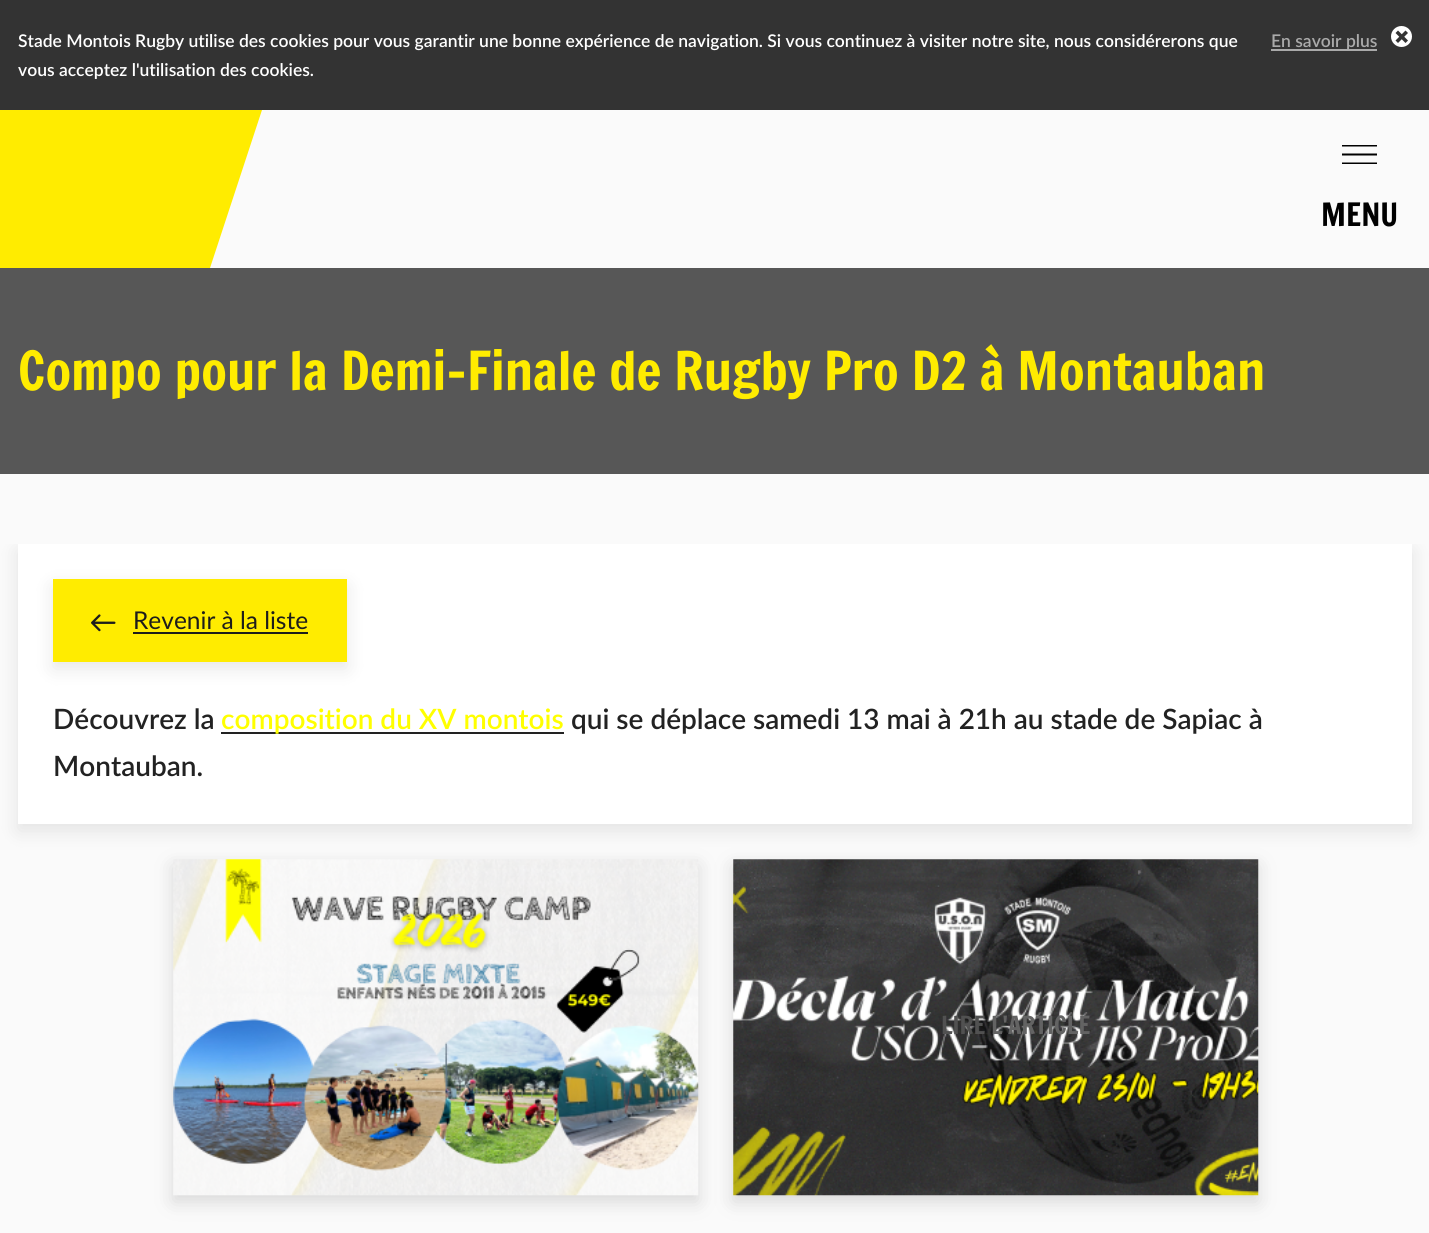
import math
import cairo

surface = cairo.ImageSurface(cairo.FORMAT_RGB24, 1429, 1233)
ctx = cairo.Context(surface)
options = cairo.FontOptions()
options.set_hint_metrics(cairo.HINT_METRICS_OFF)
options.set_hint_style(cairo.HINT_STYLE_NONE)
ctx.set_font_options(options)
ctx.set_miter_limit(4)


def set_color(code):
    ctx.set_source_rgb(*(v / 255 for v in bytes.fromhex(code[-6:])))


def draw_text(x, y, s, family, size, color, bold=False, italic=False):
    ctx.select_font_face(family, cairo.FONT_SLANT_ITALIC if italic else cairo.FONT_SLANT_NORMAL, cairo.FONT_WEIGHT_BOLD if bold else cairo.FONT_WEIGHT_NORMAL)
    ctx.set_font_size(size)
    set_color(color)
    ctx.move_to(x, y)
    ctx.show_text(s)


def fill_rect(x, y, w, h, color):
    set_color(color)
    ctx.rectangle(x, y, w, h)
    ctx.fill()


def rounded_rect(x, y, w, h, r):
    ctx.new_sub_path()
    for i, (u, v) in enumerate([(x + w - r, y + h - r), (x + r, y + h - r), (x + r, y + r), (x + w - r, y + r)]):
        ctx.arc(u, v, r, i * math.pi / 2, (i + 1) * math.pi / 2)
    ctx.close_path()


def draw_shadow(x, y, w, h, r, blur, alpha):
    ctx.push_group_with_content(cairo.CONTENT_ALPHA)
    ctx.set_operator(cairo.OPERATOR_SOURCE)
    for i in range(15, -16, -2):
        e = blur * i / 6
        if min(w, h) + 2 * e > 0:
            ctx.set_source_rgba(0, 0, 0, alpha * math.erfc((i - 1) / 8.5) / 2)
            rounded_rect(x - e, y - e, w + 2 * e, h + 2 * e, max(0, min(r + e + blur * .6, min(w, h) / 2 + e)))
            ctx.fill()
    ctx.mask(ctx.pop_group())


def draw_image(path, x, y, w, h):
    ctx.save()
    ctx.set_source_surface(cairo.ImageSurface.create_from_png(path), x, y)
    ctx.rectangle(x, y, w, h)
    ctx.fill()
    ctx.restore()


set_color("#fafafa")
ctx.paint()
fill_rect(0, 0, 1429, 110, "#333333")
draw_text(18, 47, "Stade Montois Rugby utilise des cookies pour vous garantir une bonne expérience de navigation. Si vous continuez à visiter notre site, nous considérerons que", "Lato SemiBold", 17.5, "#ffffff")
draw_text(18, 76, "vous acceptez l'utilisation des cookies.", "Lato SemiBold", 17.5, "#ffffff")
fill_rect(1271, 49, 106, 2, "#aaaaaa")
draw_text(1271, 47, "En savoir plus", "Lato SemiBold", 17.5, "#aaaaaa")
set_color("#ffffff")
ctx.new_path()
ctx.arc(1401.5, 36.5, 10.5, 0, 2 * math.pi)
ctx.fill()
set_color("#333333")
ctx.new_path()
ctx.move_to(1395.5, 40.5)
ctx.line_to(1405.5, 30.5)
ctx.line_to(1408, 33)
ctx.line_to(1398, 43)
ctx.close_path()
ctx.fill()
ctx.new_path()
ctx.move_to(1398, 30.5)
ctx.line_to(1408, 40.5)
ctx.line_to(1405.5, 43)
ctx.line_to(1395.5, 33)
ctx.close_path()
ctx.fill()
fill_rect(0, 110, 210, 158, "#ffec00")
ctx.new_path()
ctx.move_to(210, 268)
ctx.line_to(210, 110)
ctx.line_to(262, 110)
ctx.close_path()
ctx.fill()
set_color("#000000")
ctx.new_path()
ctx.move_to(1342, 164)
ctx.line_to(1342, 162.5)
ctx.line_to(1377, 162.5)
ctx.line_to(1377, 164)
ctx.close_path()
ctx.move_to(1342, 155.5)
ctx.line_to(1342, 153.5)
ctx.line_to(1377, 153.5)
ctx.line_to(1377, 155.5)
ctx.close_path()
ctx.move_to(1342, 146.5)
ctx.line_to(1342, 145)
ctx.line_to(1377, 145)
ctx.line_to(1377, 146.5)
ctx.close_path()
ctx.fill()
draw_text(1321, 226, "MENU", "Francois One", 31.5, "#000000")
fill_rect(0, 268, 1429, 206, "#575757")
draw_text(18, 390, "Compo pour la Demi-Finale de Rugby Pro D2 à Montauban", "Francois One", 52.5, "#ffec00")
ctx.save()
ctx.rectangle(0, 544, 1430, 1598)
ctx.clip()
set_color("#888888")
draw_shadow(18, 551, 1394, 280, 0, 9, 0.2)
ctx.restore()
fill_rect(18, 544, 1394, 280, "#ffffff")
set_color("#888888")
draw_shadow(53, 586, 294, 83, 0, 9, 0.2)
fill_rect(53, 579, 294, 83, "#ffec00")
draw_image("assets/img1.png", 91, 614, 25, 18)
draw_text(133, 629, "Revenir à la liste", "Lato", 24.5, "#1d1d1b")
fill_rect(133, 632, 175, 2, "#1d1d1b")
draw_text(53, 729, "Découvrez la", "Lato SemiBold", 28, "#222222")
fill_rect(221, 732, 343, 2, "#222222")
draw_text(221, 729, "composition du XV montois", "Lato SemiBold", 28, "#ffff00")
draw_text(571, 729, "qui se déplace samedi 13 mai à 21h au stade de Sapiac à", "Lato SemiBold", 28, "#222222")
draw_text(53, 776, "Montauban.", "Lato SemiBold", 28, "#222222")
set_color("#4f4f4f")
draw_shadow(173, 866, 525, 336, 0, 9, 0.2)
draw_image("assets/img2.png", 173, 859, 526, 337)
draw_shadow(733, 866, 525, 336, 0, 9, 0.2)
draw_image("assets/img3.png", 733, 859, 526, 337)
draw_text(941, 1034, "LIRE", "Francois One", 24.5, "#515151")
draw_text(991, 1034, "L'ARTICLE", "Francois One", 24.5, "#636363")
surface.write_to_png("output.png")
